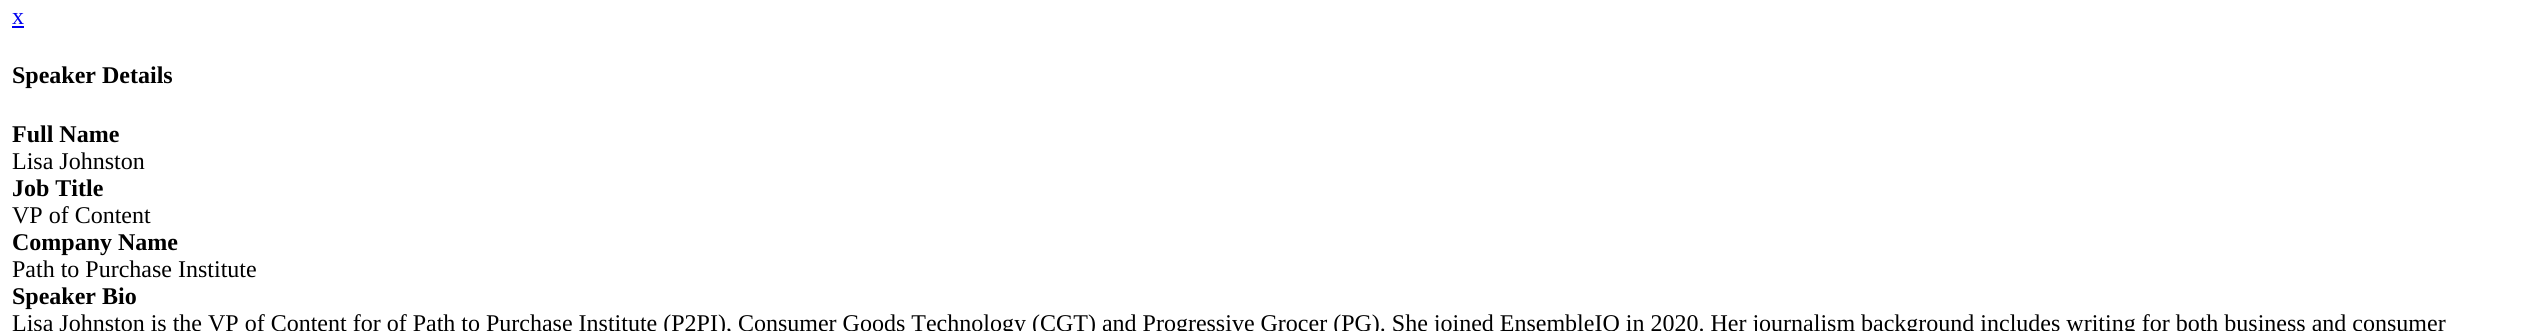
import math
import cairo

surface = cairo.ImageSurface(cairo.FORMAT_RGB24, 2532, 331)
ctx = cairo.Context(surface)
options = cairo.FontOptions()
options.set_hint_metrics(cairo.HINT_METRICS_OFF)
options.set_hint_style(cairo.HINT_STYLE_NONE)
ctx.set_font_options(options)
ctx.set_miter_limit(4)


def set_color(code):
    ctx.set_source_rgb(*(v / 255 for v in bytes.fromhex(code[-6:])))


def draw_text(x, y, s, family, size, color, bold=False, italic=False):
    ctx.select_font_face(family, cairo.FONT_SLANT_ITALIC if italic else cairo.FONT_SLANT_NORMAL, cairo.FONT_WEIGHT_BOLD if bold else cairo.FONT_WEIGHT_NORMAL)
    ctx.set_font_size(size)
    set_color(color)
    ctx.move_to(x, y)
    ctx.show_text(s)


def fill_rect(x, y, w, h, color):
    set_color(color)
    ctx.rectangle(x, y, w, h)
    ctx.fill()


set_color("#ffffff")
ctx.paint()
draw_text(12, 24, "x", "Liberation Serif", 24, "#0000ee")
fill_rect(12, 26, 12, 2, "#0000ee")
draw_text(12, 83, "Speaker Details", "Liberation Serif", 24, "#000000", bold=True)
draw_text(12, 142, "Full Name", "Liberation Serif", 24, "#000000", bold=True)
draw_text(12, 169, "Lisa Johnston", "Liberation Serif", 24, "#000000")
draw_text(12, 196, "Job Title", "Liberation Serif", 24, "#000000", bold=True)
draw_text(12, 223, "VP of Content", "Liberation Serif", 24, "#000000")
draw_text(12, 250, "Company Name", "Liberation Serif", 24, "#000000", bold=True)
draw_text(12, 277, "Path to Purchase Institute", "Liberation Serif", 24, "#000000")
draw_text(12, 304, "Speaker Bio", "Liberation Serif", 24, "#000000", bold=True)
draw_text(12, 331, "Lisa Johnston is the VP of Content for of Path to Purchase Institute (P2PI), Consumer Goods Technology (CGT) and Progressive Grocer (PG). She joined EnsembleIQ in 2020. Her journalism background includes writing for both business and consumer", "Liberation Serif", 24, "#000000")
surface.write_to_png("output.png")
